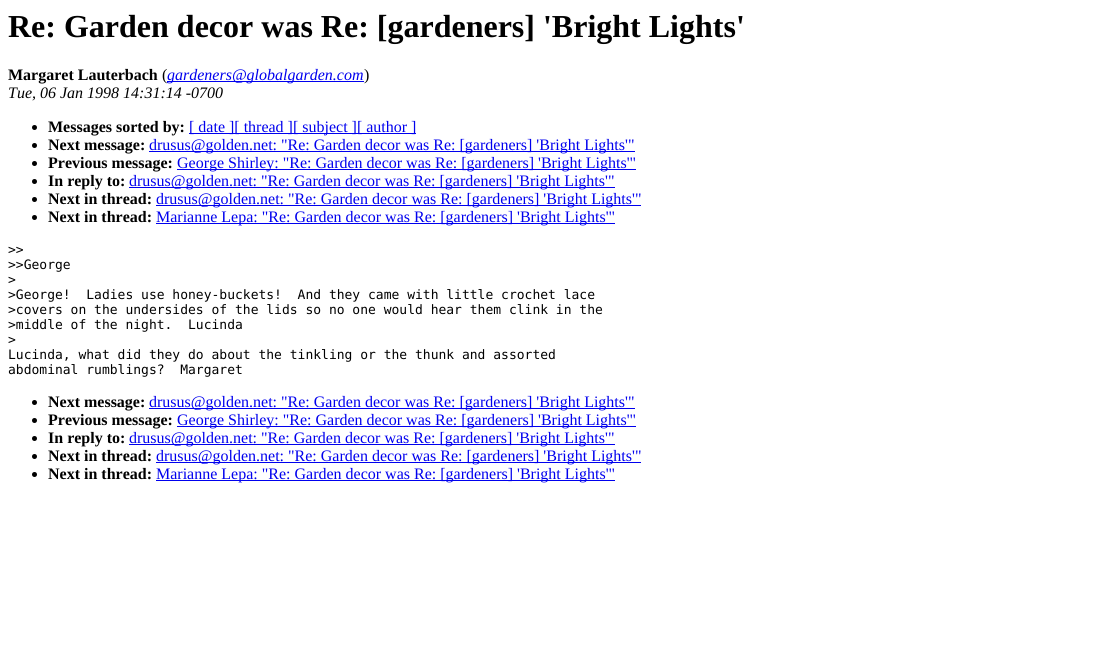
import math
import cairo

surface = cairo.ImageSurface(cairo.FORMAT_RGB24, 1118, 654)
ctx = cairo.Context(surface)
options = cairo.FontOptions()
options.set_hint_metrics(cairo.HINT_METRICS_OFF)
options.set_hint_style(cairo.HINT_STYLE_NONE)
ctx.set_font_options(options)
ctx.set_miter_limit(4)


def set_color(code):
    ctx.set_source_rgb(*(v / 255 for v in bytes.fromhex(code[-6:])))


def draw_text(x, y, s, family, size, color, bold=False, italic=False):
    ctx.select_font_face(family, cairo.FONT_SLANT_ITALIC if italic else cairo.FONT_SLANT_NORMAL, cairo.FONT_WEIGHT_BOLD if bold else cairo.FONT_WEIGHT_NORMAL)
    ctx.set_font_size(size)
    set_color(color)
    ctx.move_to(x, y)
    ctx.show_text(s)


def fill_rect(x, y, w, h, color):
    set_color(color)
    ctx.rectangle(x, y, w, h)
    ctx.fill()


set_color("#ffffff")
ctx.paint()
draw_text(8, 37, "Re: Garden decor was Re: [gardeners] 'Bright Lights'", "Liberation Serif", 32, "#000000", bold=True)
draw_text(8, 80, "Margaret Lauterbach", "Liberation Serif", 16, "#000000", bold=True)
draw_text(162, 80, "(", "Liberation Serif", 16, "#000000")
fill_rect(167, 81, 197, 1, "#0000ee")
draw_text(167, 80, "gardeners@globalgarden.com", "Liberation Serif", 16, "#0000ee", italic=True)
draw_text(364, 80, ")", "Liberation Serif", 16, "#000000")
draw_text(8, 98, "Tue, 06 Jan 1998 14:31:14 -0700", "Liberation Serif", 16, "#000000", italic=True)
ctx.new_path()
ctx.arc(34.5, 127.5, 2.5, 0, 2 * math.pi)
ctx.fill()
draw_text(48, 132, "Messages sorted by:", "Liberation Serif", 16, "#000000", bold=True)
fill_rect(189, 133, 227, 1, "#0000ee")
draw_text(189, 132, "[ date ][ thread ][ subject ][ author ]", "Liberation Serif", 16, "#0000ee")
set_color("#000000")
ctx.new_path()
ctx.arc(34.5, 145.5, 2.5, 0, 2 * math.pi)
ctx.fill()
draw_text(48, 150, "Next message:", "Liberation Serif", 16, "#000000", bold=True)
fill_rect(149, 151, 486, 1, "#0000ee")
draw_text(149, 150, "drusus@golden.net: \"Re: Garden decor was Re: [gardeners] 'Bright Lights'\"", "Liberation Serif", 16, "#0000ee")
set_color("#000000")
ctx.new_path()
ctx.arc(34.5, 163.5, 2.5, 0, 2 * math.pi)
ctx.fill()
draw_text(48, 168, "Previous message:", "Liberation Serif", 16, "#000000", bold=True)
fill_rect(177, 169, 459, 1, "#0000ee")
draw_text(177, 168, "George Shirley: \"Re: Garden decor was Re: [gardeners] 'Bright Lights'\"", "Liberation Serif", 16, "#0000ee")
set_color("#000000")
ctx.new_path()
ctx.arc(34.5, 181.5, 2.5, 0, 2 * math.pi)
ctx.fill()
draw_text(48, 186, "In reply to:", "Liberation Serif", 16, "#000000", bold=True)
fill_rect(129, 187, 486, 1, "#0000ee")
draw_text(129, 186, "drusus@golden.net: \"Re: Garden decor was Re: [gardeners] 'Bright Lights'\"", "Liberation Serif", 16, "#0000ee")
set_color("#000000")
ctx.new_path()
ctx.arc(34.5, 199.5, 2.5, 0, 2 * math.pi)
ctx.fill()
draw_text(48, 204, "Next in thread:", "Liberation Serif", 16, "#000000", bold=True)
fill_rect(156, 205, 485, 1, "#0000ee")
draw_text(156, 204, "drusus@golden.net: \"Re: Garden decor was Re: [gardeners] 'Bright Lights'\"", "Liberation Serif", 16, "#0000ee")
set_color("#000000")
ctx.new_path()
ctx.arc(34.5, 217.5, 2.5, 0, 2 * math.pi)
ctx.fill()
draw_text(48, 222, "Next in thread:", "Liberation Serif", 16, "#000000", bold=True)
fill_rect(156, 223, 459, 1, "#0000ee")
draw_text(156, 222, "Marianne Lepa: \"Re: Garden decor was Re: [gardeners] 'Bright Lights'\"", "Liberation Serif", 16, "#0000ee")
draw_text(8, 254, ">>", "DejaVu Sans Mono", 13, "#000000")
draw_text(8, 269, ">>George", "DejaVu Sans Mono", 13, "#000000")
draw_text(8, 284, ">", "DejaVu Sans Mono", 13, "#000000")
draw_text(8, 299, ">George!  Ladies use honey-buckets!  And they came with little crochet lace", "DejaVu Sans Mono", 13, "#000000")
draw_text(8, 314, ">covers on the undersides of the lids so no one would hear them clink in the", "DejaVu Sans Mono", 13, "#000000")
draw_text(8, 329, ">middle of the night.  Lucinda", "DejaVu Sans Mono", 13, "#000000")
draw_text(8, 344, ">", "DejaVu Sans Mono", 13, "#000000")
draw_text(8, 359, "Lucinda, what did they do about the tinkling or the thunk and assorted", "DejaVu Sans Mono", 13, "#000000")
draw_text(8, 374, "abdominal rumblings?  Margaret", "DejaVu Sans Mono", 13, "#000000")
ctx.new_path()
ctx.arc(34.5, 402.5, 2.5, 0, 2 * math.pi)
ctx.fill()
draw_text(48, 407, "Next message:", "Liberation Serif", 16, "#000000", bold=True)
fill_rect(149, 408, 486, 1, "#0000ee")
draw_text(149, 407, "drusus@golden.net: \"Re: Garden decor was Re: [gardeners] 'Bright Lights'\"", "Liberation Serif", 16, "#0000ee")
set_color("#000000")
ctx.new_path()
ctx.arc(34.5, 420.5, 2.5, 0, 2 * math.pi)
ctx.fill()
draw_text(48, 425, "Previous message:", "Liberation Serif", 16, "#000000", bold=True)
fill_rect(177, 426, 459, 1, "#0000ee")
draw_text(177, 425, "George Shirley: \"Re: Garden decor was Re: [gardeners] 'Bright Lights'\"", "Liberation Serif", 16, "#0000ee")
set_color("#000000")
ctx.new_path()
ctx.arc(34.5, 438.5, 2.5, 0, 2 * math.pi)
ctx.fill()
draw_text(48, 443, "In reply to:", "Liberation Serif", 16, "#000000", bold=True)
fill_rect(129, 444, 486, 1, "#0000ee")
draw_text(129, 443, "drusus@golden.net: \"Re: Garden decor was Re: [gardeners] 'Bright Lights'\"", "Liberation Serif", 16, "#0000ee")
set_color("#000000")
ctx.new_path()
ctx.arc(34.5, 456.5, 2.5, 0, 2 * math.pi)
ctx.fill()
draw_text(48, 461, "Next in thread:", "Liberation Serif", 16, "#000000", bold=True)
fill_rect(156, 462, 485, 1, "#0000ee")
draw_text(156, 461, "drusus@golden.net: \"Re: Garden decor was Re: [gardeners] 'Bright Lights'\"", "Liberation Serif", 16, "#0000ee")
set_color("#000000")
ctx.new_path()
ctx.arc(34.5, 474.5, 2.5, 0, 2 * math.pi)
ctx.fill()
draw_text(48, 479, "Next in thread:", "Liberation Serif", 16, "#000000", bold=True)
fill_rect(156, 480, 459, 1, "#0000ee")
draw_text(156, 479, "Marianne Lepa: \"Re: Garden decor was Re: [gardeners] 'Bright Lights'\"", "Liberation Serif", 16, "#0000ee")
surface.write_to_png("output.png")
